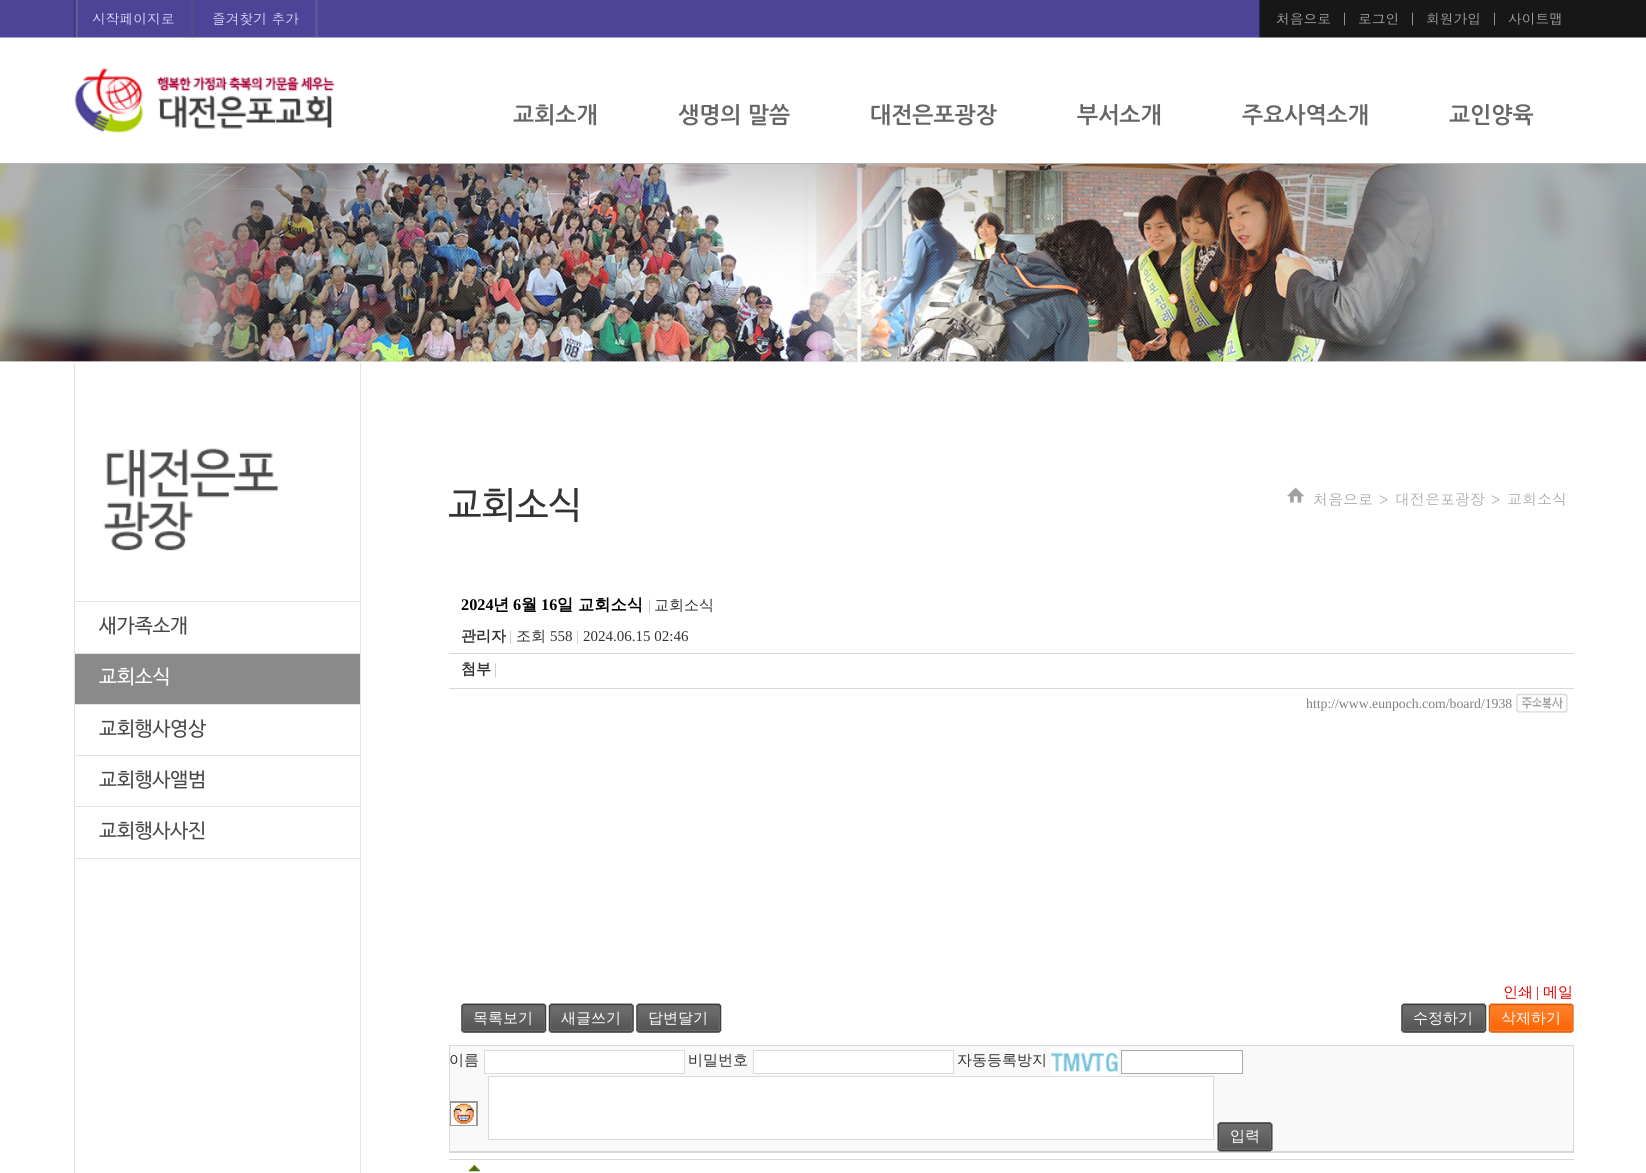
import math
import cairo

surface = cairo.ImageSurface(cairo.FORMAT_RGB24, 1646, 1173)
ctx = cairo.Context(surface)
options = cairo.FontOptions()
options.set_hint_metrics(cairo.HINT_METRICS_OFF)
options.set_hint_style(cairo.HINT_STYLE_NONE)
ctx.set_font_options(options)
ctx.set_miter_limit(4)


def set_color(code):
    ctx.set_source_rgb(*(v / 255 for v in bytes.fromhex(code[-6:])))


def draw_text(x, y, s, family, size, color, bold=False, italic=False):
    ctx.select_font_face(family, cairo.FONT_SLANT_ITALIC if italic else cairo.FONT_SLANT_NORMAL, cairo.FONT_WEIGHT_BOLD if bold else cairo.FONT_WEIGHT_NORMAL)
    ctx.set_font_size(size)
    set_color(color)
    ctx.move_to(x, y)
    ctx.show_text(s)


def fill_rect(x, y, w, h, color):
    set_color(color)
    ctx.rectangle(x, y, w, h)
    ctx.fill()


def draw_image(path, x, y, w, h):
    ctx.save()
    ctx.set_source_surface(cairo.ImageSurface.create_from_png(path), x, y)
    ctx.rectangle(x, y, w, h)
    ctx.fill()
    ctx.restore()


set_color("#ffffff")
ctx.paint()
draw_image("assets/img1.png", 0, 0, 1646, 38)
fill_rect(0, 163, 1646, 1, "#b5b5b5")
draw_image("assets/img2.png", 74, 0, 4, 38)
ctx.set_source_rgba(0.412, 0.412, 0.412, 0.2)
ctx.rectangle(191, 0, 3, 38)
ctx.fill()
draw_text(92, 24, "시작페이지로", "Dotum", 13.75, "#e2dffd")
ctx.set_source_rgba(0.604, 0.604, 0.604, 0.19)
ctx.rectangle(315, 0, 3, 38)
ctx.fill()
draw_text(212, 24, "즐겨찾기 추가", "Dotum", 13.75, "#e2dffd")
draw_text(1276, 24, "처음으로", "Dotum", 13.75, "#aaaaaa")
draw_text(1341, 24, "|", "Dotum", 13.75, "#aaaaaa")
draw_text(1358, 24, "로그인", "Dotum", 13.75, "#aaaaaa")
draw_text(1409, 24, "|", "Dotum", 13.75, "#aaaaaa")
draw_text(1426, 24, "회원가입", "Dotum", 13.75, "#aaaaaa")
draw_text(1491, 24, "|", "Dotum", 13.75, "#aaaaaa")
draw_text(1508, 24, "사이트맵", "Dotum", 13.75, "#aaaaaa")
draw_image("assets/img3.png", 74, 67, 260, 66)
draw_text(513, 123, "교회소개", "NanumGothic", 22.5, "#666666", bold=True)
draw_text(678, 123, "생명의 말씀", "NanumGothic", 22.5, "#666666", bold=True)
draw_text(870, 123, "대전은포광장", "NanumGothic", 22.5, "#666666", bold=True)
draw_text(1077, 123, "부서소개", "NanumGothic", 22.5, "#666666", bold=True)
draw_text(1242, 123, "주요사역소개", "NanumGothic", 22.5, "#666666", bold=True)
draw_text(1449, 123, "교인양육", "NanumGothic", 22.5, "#666666", bold=True)
fill_rect(0, 361, 1646, 1, "#e3e3e3")
draw_image("assets/img4.png", 0, 164, 1646, 198)
fill_rect(74, 363, 1, 810, "#e3e3e3")
draw_image("assets/img5.png", 103, 448, 175, 103)
fill_rect(75, 601, 285, 1, "#e3e3e3")
fill_rect(75, 653, 285, 1, "#e3e3e3")
draw_text(99, 632, "새가족소개", "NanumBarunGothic", 20, "#474747")
fill_rect(75, 654, 285, 50, "#8a8a8a")
fill_rect(75, 704, 285, 1, "#e3e3e3")
draw_text(99, 683, "교회소식", "NanumBarunGothic", 20, "#ffffff")
fill_rect(75, 755, 285, 1, "#e3e3e3")
draw_text(99, 735, "교회행사영상", "NanumBarunGothic", 20, "#474747")
fill_rect(75, 806, 285, 1, "#e3e3e3")
draw_text(99, 786, "교회행사앨범", "NanumBarunGothic", 20, "#474747")
fill_rect(75, 858, 285, 1, "#e3e3e3")
draw_text(99, 837, "교회행사사진", "NanumBarunGothic", 20, "#474747")
fill_rect(360, 363, 1, 810, "#e3e3e3")
ctx.save()
ctx.rectangle(449, 488, 1125, 40)
ctx.clip()
draw_text(448, 517, "교회소식", "NanumBarunGothic", 37.5, "#333333")
ctx.restore()
draw_image("assets/img6.png", 1287, 487, 17, 16)
draw_text(1313, 505, "처음으로", "Dotum", 15, "#aaaaaa")
draw_text(1379, 505, ">", "Dotum", 15, "#aaaaaa")
draw_text(1395, 505, "대전은포광장", "Dotum", 15, "#aaaaaa")
draw_text(1491, 505, ">", "Dotum", 15, "#aaaaaa")
draw_text(1507, 505, "교회소식", "Dotum", 15, "#aaaaaa")
draw_text(461, 610, "2024", "Liberation Serif", 16.25, "#000000", bold=True)
draw_text(493, 610, "년", "WenQuanYi Zen Hei", 16.25, "#000000", bold=True)
draw_text(513, 610, "6", "Liberation Serif", 16.25, "#000000", bold=True)
draw_text(521, 610, "월", "WenQuanYi Zen Hei", 16.25, "#000000", bold=True)
draw_text(541, 610, "16", "Liberation Serif", 16.25, "#000000", bold=True)
draw_text(557, 610, "일 교회소식", "WenQuanYi Zen Hei", 16.25, "#000000", bold=True)
draw_text(648, 610, "|", "Liberation Serif", 15, "#bbbbbb")
draw_text(654, 610, "교회소식", "WenQuanYi Zen Hei Medium", 15, "#333333")
draw_text(461, 641, "관리자", "WenQuanYi Zen Hei", 15, "#333333", bold=True)
draw_text(509, 641, "|", "Liberation Serif", 15, "#bbbbbb")
draw_text(516, 641, "조회", "WenQuanYi Zen Hei Medium", 15, "#333333")
draw_text(550, 641, "558", "Liberation Serif", 15, "#333333")
draw_text(576, 641, "|", "Liberation Serif", 15, "#bbbbbb")
draw_text(583, 641, "2024.06.15 02:46", "Liberation Serif", 15, "#333333")
fill_rect(449, 653, 1125, 1, "#d8d8d8")
draw_text(461, 674, "첨부", "WenQuanYi Zen Hei", 15, "#333333", bold=True)
draw_text(494, 674, "|", "Liberation Serif", 15, "#bbbbbb")
fill_rect(449, 688, 1125, 1, "#d8d8d8")
draw_text(1306, 708, "http://www.eunpoch.com/board/1938", "Liberation Serif", 13.75, "#808080")
draw_image("assets/img7.png", 1516, 693, 52, 20)
draw_text(1503, 997, "인쇄", "WenQuanYi Zen Hei Medium", 15, "#e50000")
draw_text(1536, 997, "|", "Liberation Serif", 15, "#e50000")
draw_text(1543, 997, "메일", "WenQuanYi Zen Hei Medium", 15, "#e50000")
draw_image("assets/img8.png", 461, 1003, 83, 30)
draw_image("assets/img9.png", 463, 1003, 84, 30)
draw_text(473, 1023, "목록보기", "WenQuanYi Zen Hei Medium", 15, "#ffffff")
draw_image("assets/img10.png", 548, 1003, 84, 30)
draw_image("assets/img11.png", 551, 1003, 83, 30)
draw_text(561, 1023, "새글쓰기", "WenQuanYi Zen Hei Medium", 15, "#ffffff")
draw_image("assets/img8.png", 636, 1003, 83, 30)
draw_image("assets/img9.png", 638, 1003, 84, 30)
draw_text(648, 1023, "답변달기", "WenQuanYi Zen Hei Medium", 15, "#ffffff")
draw_image("assets/img8.png", 1401, 1003, 83, 30)
draw_image("assets/img12.png", 1403, 1003, 84, 30)
draw_text(1413, 1023, "수정하기", "WenQuanYi Zen Hei Medium", 15, "#ffffff")
draw_image("assets/img13.png", 1488, 1003, 84, 30)
draw_image("assets/img14.png", 1491, 1003, 83, 30)
draw_text(1501, 1023, "삭제하기", "WenQuanYi Zen Hei Medium", 15, "#ffffff")
fill_rect(449, 1045, 1125, 108, "#d8d8d8")
fill_rect(450, 1046, 1123, 105, "#f9f9f9")
draw_text(449, 1065, "이름", "WenQuanYi Zen Hei Medium", 15, "#333333")
set_color("#ffffff")
ctx.rectangle(484.5, 1050.5, 200, 23)
ctx.fill_preserve()
set_color("#dadada")
ctx.set_line_width(1)
ctx.stroke()
draw_text(688, 1065, "비밀번호", "WenQuanYi Zen Hei Medium", 15, "#333333")
set_color("#ffffff")
ctx.rectangle(753.5, 1050.5, 200, 23)
ctx.fill_preserve()
set_color("#dadada")
ctx.stroke()
draw_text(957, 1065, "자동등록방지", "WenQuanYi Zen Hei Medium", 15, "#333333")
draw_image("assets/img15.png", 1051, 1048, 67, 28)
set_color("#ffffff")
ctx.rectangle(1121.5, 1050.5, 121, 23)
ctx.fill_preserve()
set_color("#aaaaaa")
ctx.stroke()
fill_rect(450, 1101, 28, 25, "#999999")
fill_rect(451, 1103, 25, 22, "#ffffff")
draw_image("assets/img16.png", 453, 1103, 21, 21)
ctx.rectangle(488.5, 1076.5, 725, 63)
ctx.fill_preserve()
set_color("#dadada")
ctx.stroke()
draw_image("assets/img17.png", 1217, 1122, 53, 30)
draw_image("assets/img18.png", 1220, 1122, 53, 30)
draw_text(1230, 1141, "입력", "WenQuanYi Zen Hei Medium", 15, "#ffffff")
fill_rect(449, 1159, 1125, 1, "#d8d8d8")
draw_image("assets/img19.png", 468, 1165, 12, 7)
surface.write_to_png("output.png")
